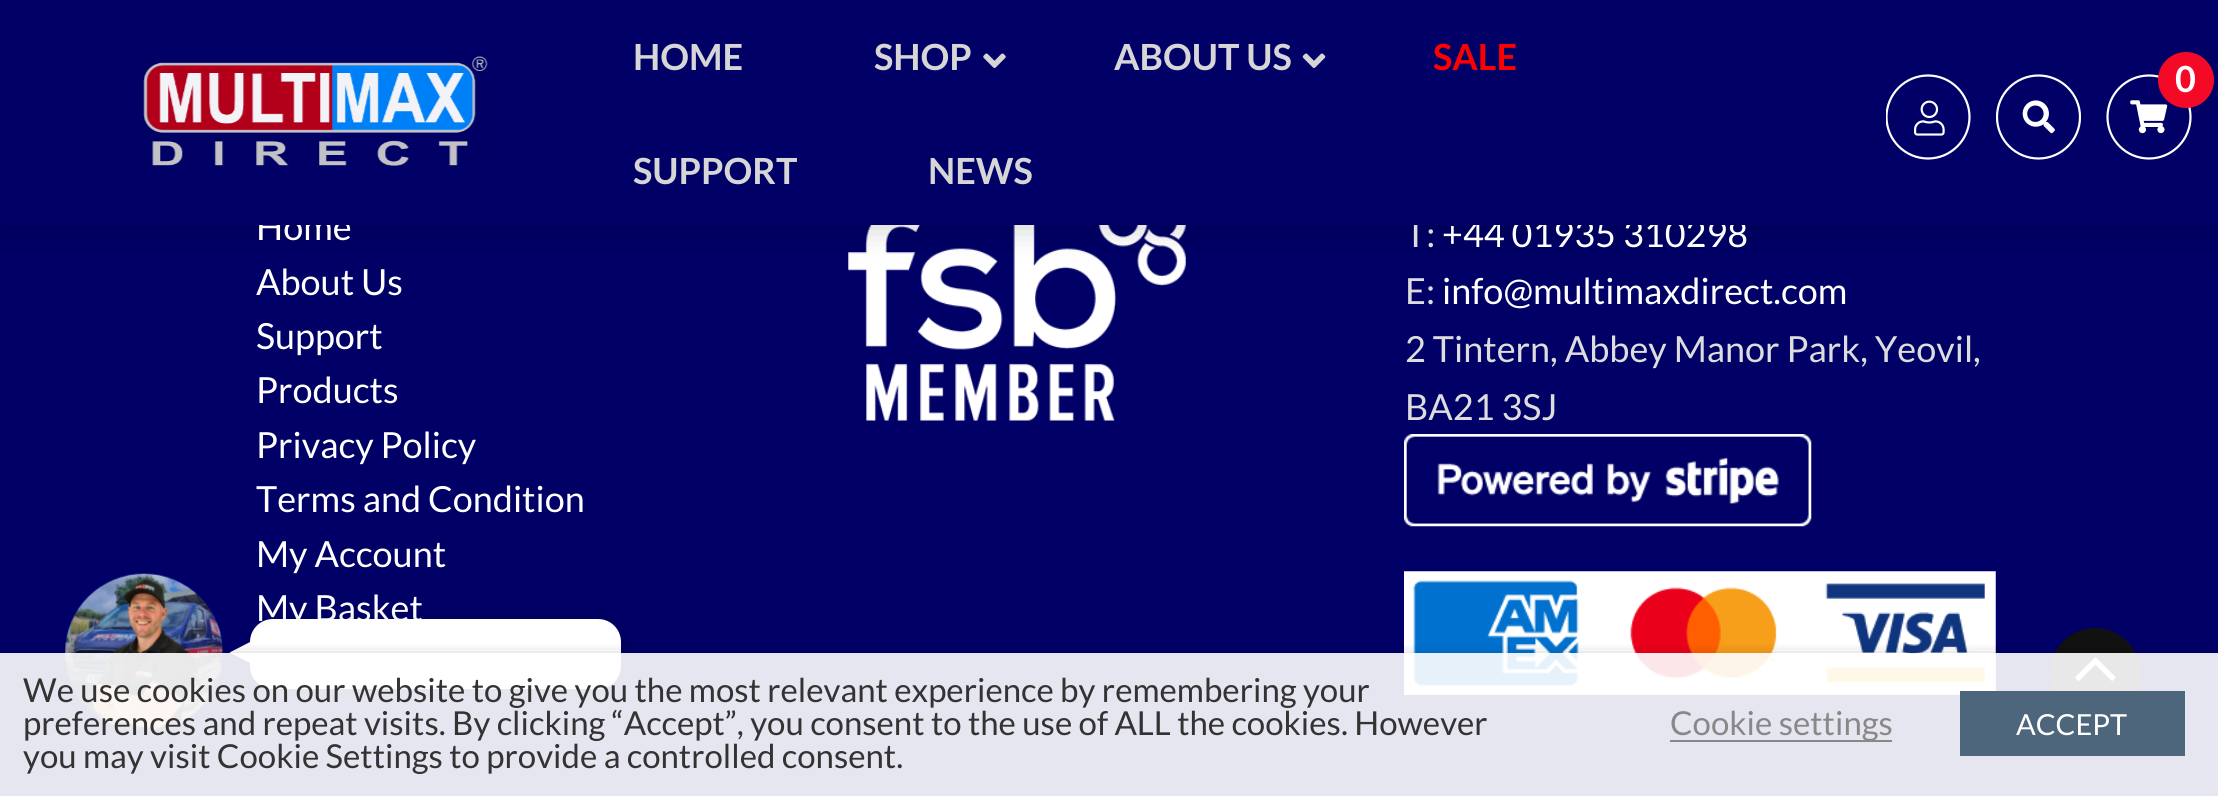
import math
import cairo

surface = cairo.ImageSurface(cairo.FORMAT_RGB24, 2218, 796)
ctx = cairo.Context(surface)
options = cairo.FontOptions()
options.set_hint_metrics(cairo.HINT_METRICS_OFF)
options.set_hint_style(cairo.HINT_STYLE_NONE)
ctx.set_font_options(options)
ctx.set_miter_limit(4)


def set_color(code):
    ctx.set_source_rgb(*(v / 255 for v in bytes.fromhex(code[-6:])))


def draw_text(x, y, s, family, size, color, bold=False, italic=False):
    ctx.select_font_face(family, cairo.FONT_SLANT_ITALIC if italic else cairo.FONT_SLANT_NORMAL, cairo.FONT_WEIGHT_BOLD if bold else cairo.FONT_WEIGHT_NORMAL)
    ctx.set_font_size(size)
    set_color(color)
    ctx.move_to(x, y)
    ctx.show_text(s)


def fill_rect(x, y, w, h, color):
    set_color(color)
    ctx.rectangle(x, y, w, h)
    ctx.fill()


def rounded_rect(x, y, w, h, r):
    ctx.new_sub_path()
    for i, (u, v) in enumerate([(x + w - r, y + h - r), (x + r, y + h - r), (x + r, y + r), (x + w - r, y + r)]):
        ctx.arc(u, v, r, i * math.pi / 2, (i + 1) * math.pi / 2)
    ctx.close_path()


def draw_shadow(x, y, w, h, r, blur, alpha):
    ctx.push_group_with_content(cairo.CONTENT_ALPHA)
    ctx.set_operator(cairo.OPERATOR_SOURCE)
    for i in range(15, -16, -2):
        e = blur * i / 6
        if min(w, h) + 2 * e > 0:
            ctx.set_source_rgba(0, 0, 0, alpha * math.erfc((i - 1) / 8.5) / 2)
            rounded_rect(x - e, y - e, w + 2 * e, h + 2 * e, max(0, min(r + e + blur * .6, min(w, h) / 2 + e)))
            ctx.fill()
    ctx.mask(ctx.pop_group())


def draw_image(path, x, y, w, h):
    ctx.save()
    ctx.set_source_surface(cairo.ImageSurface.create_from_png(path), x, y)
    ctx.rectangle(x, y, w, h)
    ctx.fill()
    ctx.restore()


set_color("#000066")
ctx.paint()
draw_image("assets/img7.png", 848, 225, 338, 196)
set_color("#000000")
draw_shadow(0, 2, 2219, 225, 0, 17, 0.2)
draw_text(256, 240, "Home", "Lato", 36, "#ffffff")
draw_text(1405, 247, "T:", "Lato", 36, "#dddddd")
draw_text(1442, 247, "+44 01935 310298", "Lato", 36, "#ffffff")
fill_rect(0, 0, 2218, 225, "#000066")
draw_image("assets/img1.png", 143, 54, 345, 112)
draw_text(633, 70, "HOME", "Lato", 36, "#d6d6d6", bold=True)
draw_text(874, 70, "SHOP", "Lato", 36, "#d6d6d6", bold=True)
draw_image("assets/img2.png", 983, 53, 23, 15)
draw_text(1114, 70, "ABOUT US", "Lato", 36, "#d6d6d6", bold=True)
draw_image("assets/img3.png", 1302, 53, 24, 15)
draw_text(1433, 70, "SALE", "Lato", 36, "#ff0000", bold=True)
draw_text(633, 184, "SUPPORT", "Lato", 36, "#d6d6d6", bold=True)
draw_text(928, 184, "NEWS", "Lato", 36, "#d6d6d6", bold=True)
draw_image("assets/img4.png", 1886, 74, 85, 86)
draw_image("assets/img5.png", 1996, 74, 85, 86)
draw_image("assets/img6.png", 2106, 74, 86, 86)
set_color("#f40a27")
ctx.arc(2186, 80, 28, 0, 2 * math.pi)
ctx.fill()
draw_text(2175, 92, "0", "Lato", 36, "#ffffff", bold=True)
draw_text(256, 295, "About Us", "Lato", 36, "#ffffff")
draw_text(256, 349, "Support", "Lato", 36, "#ffffff")
draw_text(256, 403, "Products", "Lato", 36, "#ffffff")
draw_text(256, 458, "Privacy Policy", "Lato", 36, "#ffffff")
draw_text(256, 512, "Terms and Condition", "Lato", 36, "#ffffff")
draw_text(256, 567, "My Account", "Lato", 36, "#ffffff")
draw_text(256, 621, "My Basket", "Lato", 36, "#ffffff")
draw_text(1405, 304, "E:", "Lato", 36, "#dddddd")
draw_text(1442, 304, "info@multimaxdirect.com", "Lato", 36, "#ffffff")
draw_text(1405, 362, "2 Tintern, Abbey Manor Park, Yeovil,", "Lato", 36, "#dddddd")
draw_text(1405, 420, "BA21 3SJ", "Lato", 36, "#dddddd")
draw_image("assets/img8.png", 1404, 434, 408, 93)
draw_image("assets/img9.png", 1404, 571, 592, 124)
set_color("#00058d")
rounded_rect(65, 574, 158, 157, 78.5)
ctx.fill()
draw_image("assets/img10.png", 65, 573, 159, 159)
ctx.save()
ctx.set_fill_rule(cairo.FILL_RULE_EVEN_ODD)
ctx.new_path()
ctx.move_to(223, 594)
ctx.line_to(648, 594)
ctx.line_to(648, 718)
ctx.line_to(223, 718)
ctx.close_path()
ctx.move_to(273, 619)
ctx.line_to(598, 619)
ctx.curve_to(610.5, 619, 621, 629.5, 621, 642)
ctx.line_to(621, 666)
ctx.curve_to(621, 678.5, 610.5, 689, 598, 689)
ctx.line_to(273, 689)
ctx.curve_to(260.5, 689, 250, 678.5, 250, 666)
ctx.line_to(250, 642)
ctx.curve_to(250, 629.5, 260.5, 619, 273, 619)
ctx.close_path()
ctx.clip()
set_color("#000000")
draw_shadow(250, 621, 371, 70, 23, 8.5, 0.15)
ctx.restore()
set_color("#ffffff")
rounded_rect(250, 619, 371, 70, 23)
ctx.fill()
ctx.new_path()
ctx.move_to(252, 641)
ctx.line_to(252, 664)
ctx.line_to(229.5, 652.5)
ctx.close_path()
ctx.fill()
set_color("#111111")
ctx.arc(2095, 673, 45, 0, 2 * math.pi)
ctx.fill()
draw_image("assets/img11.png", 2075, 657, 41, 24)
ctx.save()
ctx.rectangle(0, 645, 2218, 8)
ctx.clip()
set_color("#000000")
draw_shadow(0, 664, 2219, 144, 0, 11, 0.5)
ctx.restore()
ctx.set_source_rgba(1, 1, 1, 0.9)
ctx.rectangle(0, 653, 2218, 143)
ctx.fill()
draw_text(23, 702, "We use cookies on our website to give you the most relevant experience by remembering your", "Lato", 33, "#333333")
draw_text(23, 735, "preferences and repeat visits. By clicking “Accept”, you consent to the use of ALL the cookies. However", "Lato", 33, "#333333")
draw_text(23, 768, "you may visit Cookie Settings to provide a controlled consent.", "Lato", 33, "#333333")
fill_rect(1670, 740, 222, 2, "#898888")
draw_text(1670, 735, "Cookie settings", "Lato", 33, "#898888")
fill_rect(1960, 691, 225, 65, "#4e667b")
draw_text(2016, 735, "ACCEPT", "Lato", 29, "#ffffff")
surface.write_to_png("output.png")
